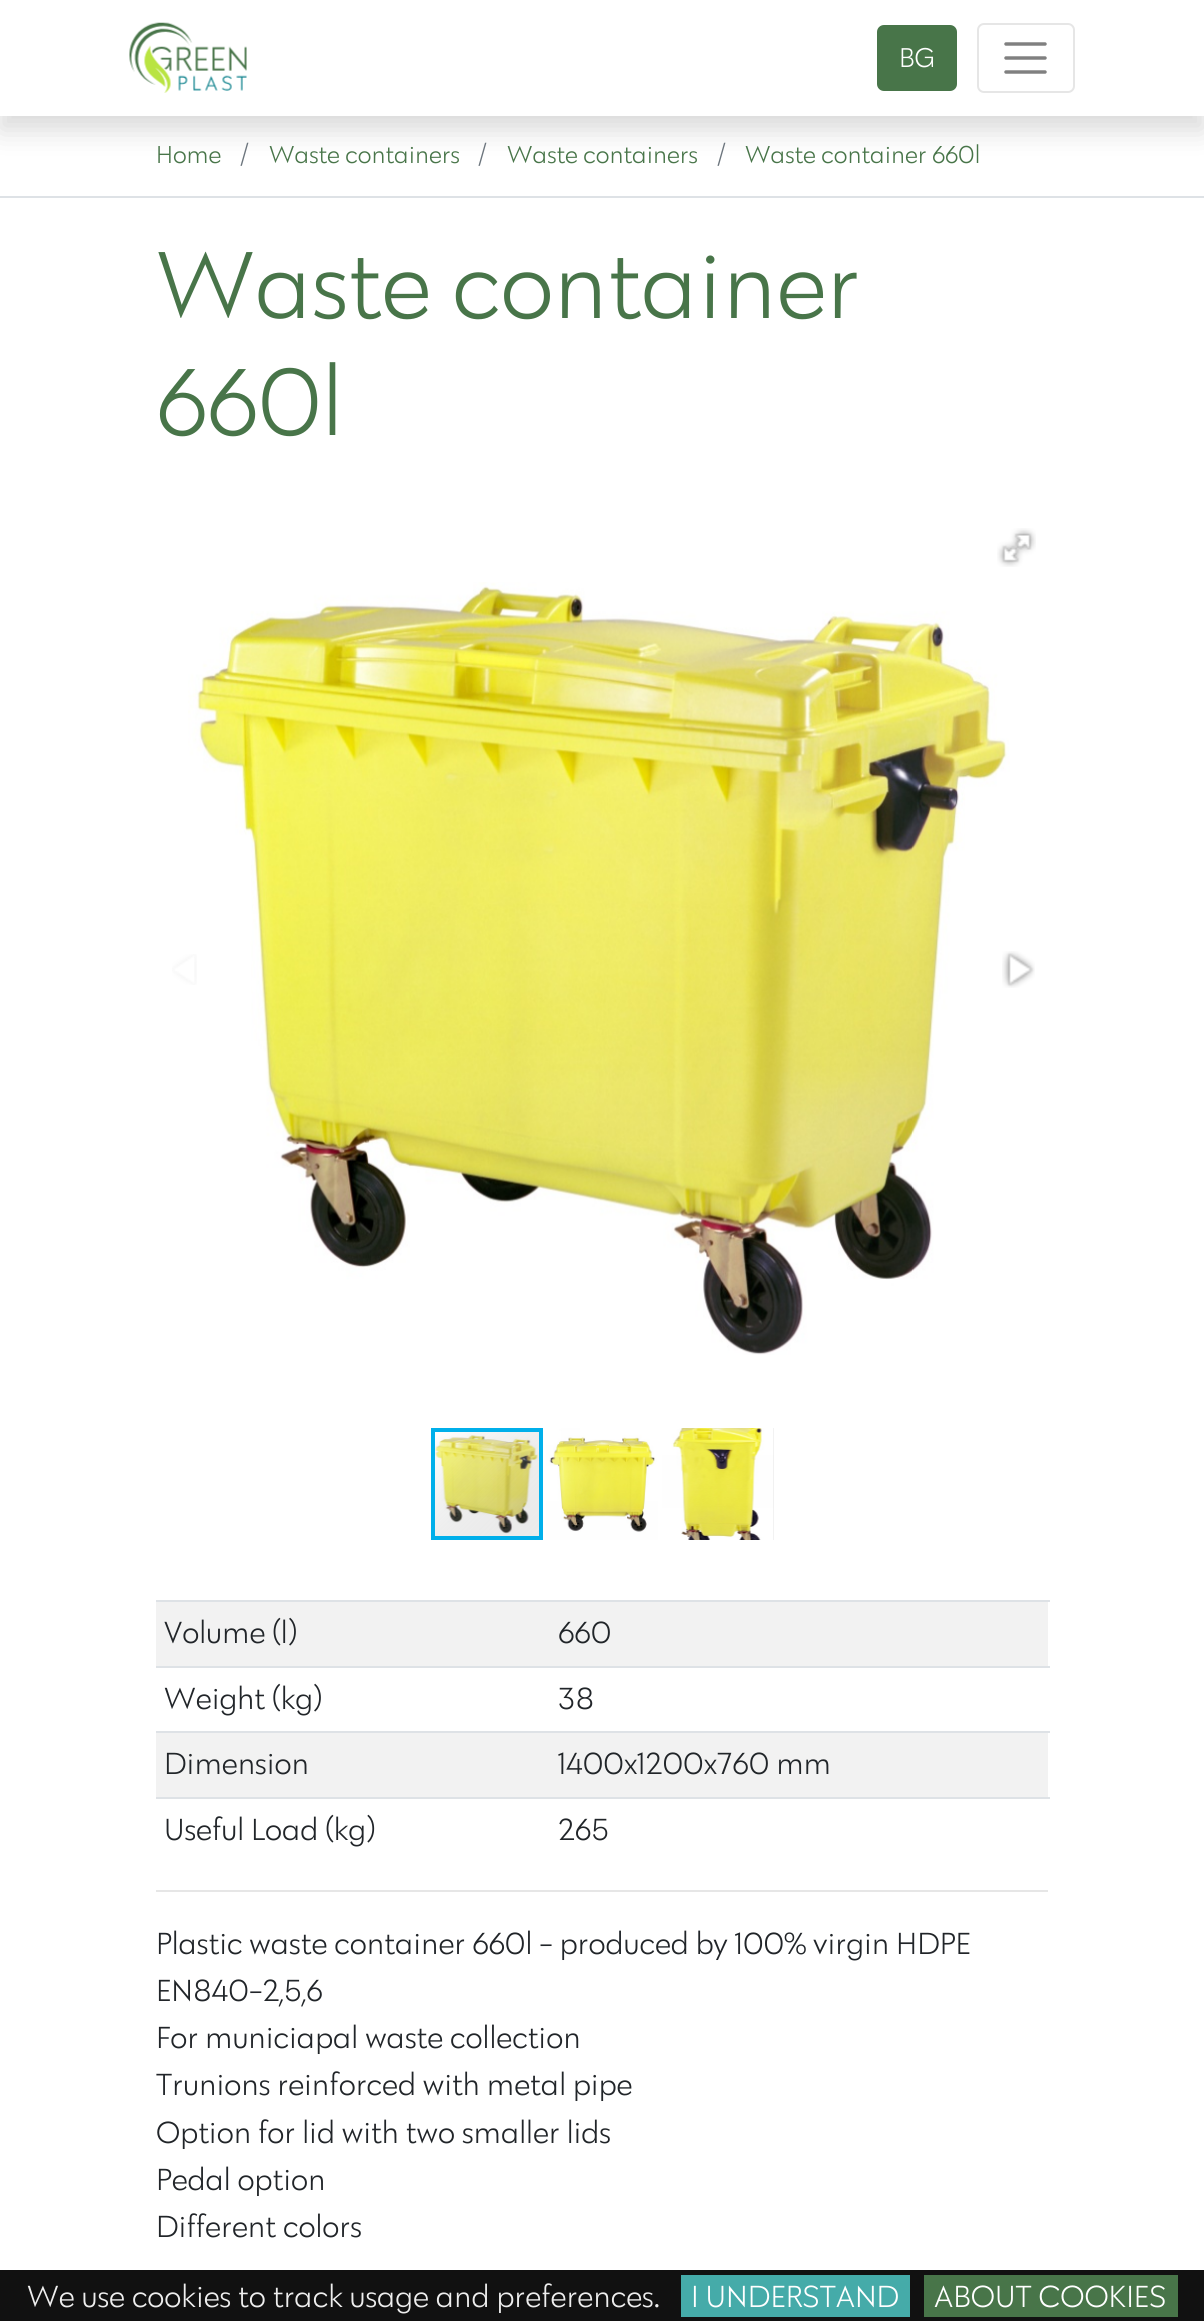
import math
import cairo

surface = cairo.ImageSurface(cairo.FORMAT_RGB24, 1204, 2321)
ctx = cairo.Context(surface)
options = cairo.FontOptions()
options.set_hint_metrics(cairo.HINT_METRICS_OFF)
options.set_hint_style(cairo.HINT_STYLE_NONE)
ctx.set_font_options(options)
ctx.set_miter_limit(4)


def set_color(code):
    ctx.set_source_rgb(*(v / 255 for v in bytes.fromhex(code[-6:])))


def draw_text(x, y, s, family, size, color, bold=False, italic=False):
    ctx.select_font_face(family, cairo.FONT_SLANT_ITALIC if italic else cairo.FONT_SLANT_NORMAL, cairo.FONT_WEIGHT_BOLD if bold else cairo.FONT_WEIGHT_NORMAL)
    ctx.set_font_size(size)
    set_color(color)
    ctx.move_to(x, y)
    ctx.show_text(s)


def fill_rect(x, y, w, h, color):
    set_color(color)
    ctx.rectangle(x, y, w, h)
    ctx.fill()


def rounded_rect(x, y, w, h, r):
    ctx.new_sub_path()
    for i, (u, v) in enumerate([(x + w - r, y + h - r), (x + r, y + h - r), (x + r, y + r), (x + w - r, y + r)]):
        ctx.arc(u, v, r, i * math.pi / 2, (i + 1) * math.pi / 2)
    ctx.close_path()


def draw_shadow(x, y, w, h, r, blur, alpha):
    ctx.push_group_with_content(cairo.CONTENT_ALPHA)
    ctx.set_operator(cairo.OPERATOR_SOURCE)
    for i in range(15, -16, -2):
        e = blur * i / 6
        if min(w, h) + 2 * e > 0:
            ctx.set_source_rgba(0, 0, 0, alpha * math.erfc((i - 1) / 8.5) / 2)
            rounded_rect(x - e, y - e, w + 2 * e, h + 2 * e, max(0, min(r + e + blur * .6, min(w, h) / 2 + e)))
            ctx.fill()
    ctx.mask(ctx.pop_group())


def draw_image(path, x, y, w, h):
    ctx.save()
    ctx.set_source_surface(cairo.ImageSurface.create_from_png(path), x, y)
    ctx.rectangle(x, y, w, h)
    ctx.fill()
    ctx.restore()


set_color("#ffffff")
ctx.paint()
set_color("#000000")
draw_shadow(0, 14, 1204, 116, 0, 14, 0.15)
fill_rect(0, 0, 1204, 116, "#ffffff")
draw_image("assets/img1.png", 129, 22, 118, 71)
set_color("#487549")
rounded_rect(878, 26, 78, 64, 6)
ctx.fill_preserve()
ctx.stroke()
draw_text(899, 67, "BG", "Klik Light", 28, "#ffffff")
rounded_rect(978, 24, 96, 68, 6)
set_color("#e6e6e6")
ctx.stroke()
ctx.new_path()
ctx.move_to(1006, 44)
ctx.line_to(1045, 44)
ctx.move_to(1006, 58)
ctx.line_to(1045, 58)
ctx.move_to(1006, 72)
ctx.line_to(1045, 72)
set_color("#808080")
ctx.set_line_width(3.5)
ctx.set_line_cap(cairo.LINE_CAP_ROUND)
ctx.stroke()
fill_rect(0, 196, 1204, 2, "#dee2e6")
draw_text(156, 163, "Home", "Klik Light", 25.25, "#487549")
draw_text(240, 163, "/", "Klik Light", 25.25, "#6c757d")
draw_text(269, 163, "Waste containers", "Klik Light", 25.25, "#487549")
draw_text(478, 163, "/", "Klik Light", 25.25, "#6c757d")
draw_text(507, 163, "Waste containers", "Klik Light", 25.25, "#487549")
draw_text(717, 163, "/", "Klik Light", 25.25, "#6c757d")
draw_text(745, 163, "Waste container 660l", "Klik Light", 25.25, "#487549")
draw_text(156, 318, "Waste container", "Klik Light", 98, "#487549")
draw_text(156, 435, "660l", "Klik Light", 98, "#487549")
draw_image("assets/img2.png", 997, 528, 39, 39)
draw_image("assets/img4.png", 188, 582, 822, 773)
draw_image("assets/img3.png", 172, 954, 25, 31)
draw_image("assets/img5.png", 1002, 951, 33, 37)
draw_image("assets/img8.png", 435, 1432, 104, 104)
ctx.rectangle(433, 1430, 108, 108)
set_color("#00afea")
ctx.set_line_width(4)
ctx.set_line_cap(cairo.LINE_CAP_BUTT)
ctx.stroke()
draw_image("assets/img6.png", 546, 1428, 112, 112)
fill_rect(773, 1428, 1, 112, "#e5e5e5")
draw_image("assets/img7.png", 662, 1428, 112, 112)
fill_rect(156, 1602, 892, 64, "#f2f2f2")
draw_text(164, 1643, "Volume (l)", "Klik Light", 31.5, "#212529")
fill_rect(156, 1600, 894, 2, "#dee2e6")
draw_text(558, 1643, "660", "Klik Light", 31.5, "#212529")
draw_text(164, 1709, "Weight (kg)", "Klik Light", 31.5, "#212529")
fill_rect(156, 1666, 894, 2, "#dee2e6")
draw_text(558, 1709, "38", "Klik Light", 31.5, "#212529")
fill_rect(156, 1733, 892, 64, "#f2f2f2")
draw_text(164, 1774, "Dimension", "Klik Light", 31.5, "#212529")
fill_rect(156, 1731, 894, 2, "#dee2e6")
draw_text(558, 1774, "1400x1200x760 mm", "Klik Light", 31.5, "#212529")
draw_text(164, 1840, "Useful Load (kg)", "Klik Light", 31.5, "#212529")
fill_rect(156, 1797, 894, 2, "#dee2e6")
draw_text(558, 1840, "265", "Klik Light", 31.5, "#212529")
fill_rect(156, 1890, 892, 2, "#e6e6e6")
draw_text(156, 1954, "Plastic waste container 660l - produced by 100% virgin HDPE", "Klik Light", 31.5, "#212529")
draw_text(156, 2001, "EN840-2,5,6", "Klik Light", 31.5, "#212529")
draw_text(156, 2048, "For municiapal waste collection", "Klik Light", 31.5, "#212529")
draw_text(156, 2095, "Trunions reinforced with metal pipe", "Klik Light", 31.5, "#212529")
draw_text(156, 2143, "Option for lid with two smaller lids", "Klik Light", 31.5, "#212529")
draw_text(156, 2190, "Pedal option", "Klik Light", 31.5, "#212529")
draw_text(156, 2237, "Different colors", "Klik Light", 31.5, "#212529")
fill_rect(0, 2270, 1204, 51, "#111111")
draw_text(27, 2307, "We use cookies to track usage and preferences.", "Klik Light", 31.5, "#eeeeee")
fill_rect(681, 2275, 229, 42, "#45aba9")
draw_text(691, 2307, "I UNDERSTAND", "Klik Light", 31.5, "#ffffff")
fill_rect(924, 2275, 254, 42, "#487549")
draw_text(934, 2307, "ABOUT COOKIES", "Klik Light", 31.5, "#ffffff")
surface.write_to_png("output.png")
